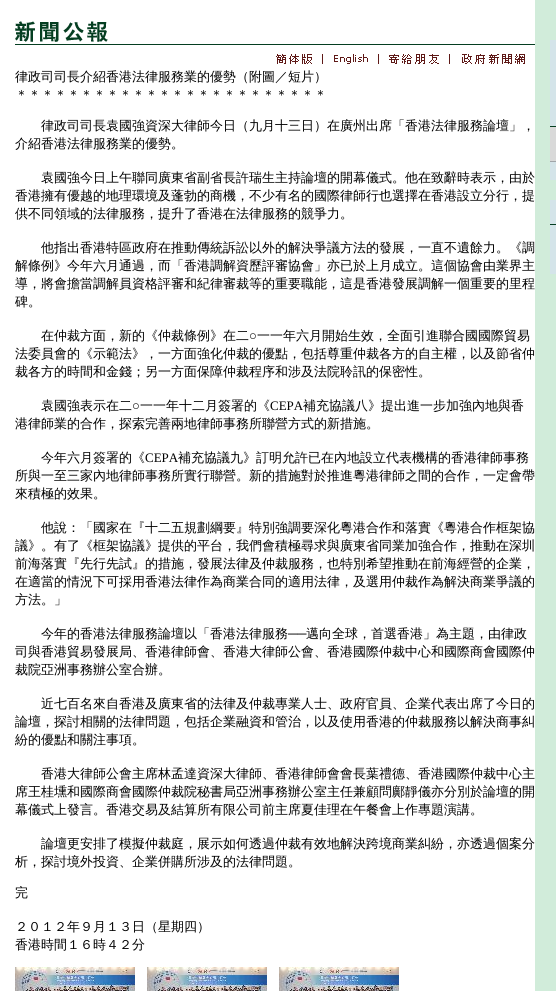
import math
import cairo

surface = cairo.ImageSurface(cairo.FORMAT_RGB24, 556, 991)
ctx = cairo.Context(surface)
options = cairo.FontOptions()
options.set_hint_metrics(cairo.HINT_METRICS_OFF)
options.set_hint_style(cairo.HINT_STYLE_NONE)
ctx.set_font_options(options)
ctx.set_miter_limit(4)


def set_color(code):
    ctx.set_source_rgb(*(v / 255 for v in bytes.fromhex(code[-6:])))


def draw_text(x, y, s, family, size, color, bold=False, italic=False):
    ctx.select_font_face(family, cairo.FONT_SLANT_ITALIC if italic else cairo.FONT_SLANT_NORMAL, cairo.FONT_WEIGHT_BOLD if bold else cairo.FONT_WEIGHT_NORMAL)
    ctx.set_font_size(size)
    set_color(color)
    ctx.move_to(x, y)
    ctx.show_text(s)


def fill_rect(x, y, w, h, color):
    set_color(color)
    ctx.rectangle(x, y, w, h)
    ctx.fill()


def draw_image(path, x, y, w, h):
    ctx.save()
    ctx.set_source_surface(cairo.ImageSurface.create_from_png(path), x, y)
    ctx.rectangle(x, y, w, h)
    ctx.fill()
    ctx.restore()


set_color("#ffffff")
ctx.paint()
fill_rect(535, 0, 21, 991, "#d1ecda")
fill_rect(15, 44, 520, 1, "#053e21")
draw_image("assets/img1.png", 15, 21, 93, 21)
draw_image("assets/img2.png", 276, 54, 47, 10)
draw_image("assets/img3.png", 334, 54, 45, 10)
draw_image("assets/img4.png", 389, 54, 61, 10)
draw_image("assets/img5.png", 462, 54, 63, 10)
draw_text(15, 81, "律政司司長介紹香港法律服務業的優勢（附圖／短片）", "WenQuanYi Zen Hei Medium", 13, "#000000")
draw_text(15, 99, "＊＊＊＊＊＊＊＊＊＊＊＊＊＊＊＊＊＊＊＊＊＊＊＊", "WenQuanYi Zen Hei Medium", 13, "#000000")
draw_text(41, 130, "律政司司長袁國強資深大律師今日（九月十三日）在廣州出席「香港法律服務論壇」，", "WenQuanYi Zen Hei Medium", 13, "#000000")
draw_text(15, 148, "介紹香港法律服務業的優勢。", "WenQuanYi Zen Hei Medium", 13, "#000000")
draw_text(41, 182, "袁國強今日上午聯同廣東省副省長許瑞生主持論壇的開幕儀式。他在致辭時表示，由於", "WenQuanYi Zen Hei Medium", 13, "#000000")
draw_text(15, 200, "香港擁有優越的地理環境及蓬勃的商機，不少有名的國際律師行也選擇在香港設立分行，提", "WenQuanYi Zen Hei Medium", 13, "#000000")
draw_text(15, 218, "供不同領域的法律服務，提升了香港在法律服務的競爭力。", "WenQuanYi Zen Hei Medium", 13, "#000000")
draw_text(41, 252, "他指出香港特區政府在推動傳統訴訟以外的解決爭議方法的發展，一直不遺餘力。《調", "WenQuanYi Zen Hei Medium", 13, "#000000")
draw_text(15, 270, "解條例》今年六月通過，而「香港調解資歷評審協會」亦已於上月成立。這個協會由業界主", "WenQuanYi Zen Hei Medium", 13, "#000000")
draw_text(15, 288, "導，將會擔當調解員資格評審和紀律審裁等的重要職能，這是香港發展調解一個重要的里程", "WenQuanYi Zen Hei Medium", 13, "#000000")
draw_text(15, 306, "碑。", "WenQuanYi Zen Hei Medium", 13, "#000000")
draw_text(41, 340, "在仲裁方面，新的《仲裁條例》在二", "WenQuanYi Zen Hei Medium", 13, "#000000")
draw_text(249, 340, "○", "Liberation Serif", 13, "#000000")
draw_text(257, 340, "一一年六月開始生效，全面引進聯合國國際貿易", "WenQuanYi Zen Hei Medium", 13, "#000000")
draw_text(15, 358, "法委員會的《示範法》，一方面強化仲裁的優點，包括尊重仲裁各方的自主權，以及節省仲", "WenQuanYi Zen Hei Medium", 13, "#000000")
draw_text(15, 376, "裁各方的時間和金錢；另一方面保障仲裁程序和涉及法院聆訊的保密性。", "WenQuanYi Zen Hei Medium", 13, "#000000")
draw_text(41, 410, "袁國強表示在二", "WenQuanYi Zen Hei Medium", 13, "#000000")
draw_text(132, 410, "○", "Liberation Serif", 13, "#000000")
draw_text(140, 410, "一一年十二月簽署的《", "WenQuanYi Zen Hei Medium", 13, "#000000")
draw_text(270, 410, "CEPA", "Liberation Serif", 13, "#000000")
draw_text(303, 410, "補充協議八》提出進一步加強內地與香", "WenQuanYi Zen Hei Medium", 13, "#000000")
draw_text(15, 428, "港律師業的合作，探索完善兩地律師事務所聯營方式的新措施。", "WenQuanYi Zen Hei Medium", 13, "#000000")
draw_text(41, 462, "今年六月簽署的《", "WenQuanYi Zen Hei Medium", 13, "#000000")
draw_text(145, 462, "CEPA", "Liberation Serif", 13, "#000000")
draw_text(178, 462, "補充協議九》訂明允許已在內地設立代表機構的香港律師事務", "WenQuanYi Zen Hei Medium", 13, "#000000")
draw_text(15, 480, "所與一至三家內地律師事務所實行聯營。新的措施對於推進粵港律師之間的合作，一定會帶", "WenQuanYi Zen Hei Medium", 13, "#000000")
draw_text(15, 498, "來積極的效果。", "WenQuanYi Zen Hei Medium", 13, "#000000")
draw_text(41, 532, "他說：「國家在『十二五規劃綱要』特別強調要深化粵港合作和落實《粵港合作框架協", "WenQuanYi Zen Hei Medium", 13, "#000000")
draw_text(15, 550, "議》。有了《框架協議》提供的平台，我們會積極尋求與廣東省同業加強合作，推動在深圳", "WenQuanYi Zen Hei Medium", 13, "#000000")
draw_text(15, 568, "前海落實『先行先試』的措施，發展法律及仲裁服務，也特別希望推動在前海經營的企業，", "WenQuanYi Zen Hei Medium", 13, "#000000")
draw_text(15, 586, "在適當的情況下可採用香港法律作為商業合同的適用法律，及選用仲裁作為解決商業爭議的", "WenQuanYi Zen Hei Medium", 13, "#000000")
draw_text(15, 604, "方法。」", "WenQuanYi Zen Hei Medium", 13, "#000000")
draw_text(41, 638, "今年的香港法律服務論壇以「香港法律服務", "WenQuanYi Zen Hei Medium", 13, "#000000")
draw_text(288, 638, "──", "Liberation Serif", 13, "#000000")
draw_text(306, 638, "邁向全球，首選香港」為主題，由律政", "WenQuanYi Zen Hei Medium", 13, "#000000")
draw_text(15, 656, "司與香港貿易發展局、香港律師會、香港大律師公會、香港國際仲裁中心和國際商會國際仲", "WenQuanYi Zen Hei Medium", 13, "#000000")
draw_text(15, 674, "裁院亞洲事務辦公室合辦。", "WenQuanYi Zen Hei Medium", 13, "#000000")
draw_text(41, 708, "近七百名來自香港及廣東省的法律及仲裁專業人士、政府官員、企業代表出席了今日的", "WenQuanYi Zen Hei Medium", 13, "#000000")
draw_text(15, 726, "論壇，探討相關的法律問題，包括企業融資和管治，以及使用香港的仲裁服務以解決商事糾", "WenQuanYi Zen Hei Medium", 13, "#000000")
draw_text(15, 744, "紛的優點和關注事項。", "WenQuanYi Zen Hei Medium", 13, "#000000")
draw_text(41, 778, "香港大律師公會主席林孟達資深大律師、香港律師會會長葉禮德、香港國際仲裁中心主", "WenQuanYi Zen Hei Medium", 13, "#000000")
draw_text(15, 796, "席王桂壎和國際商會國際仲裁院秘書局亞洲事務辦公室主任兼顧問鄺靜儀亦分別於論壇的開", "WenQuanYi Zen Hei Medium", 13, "#000000")
draw_text(15, 814, "幕儀式上發言。香港交易及結算所有限公司前主席夏佳理在午餐會上作專題演講。", "WenQuanYi Zen Hei Medium", 13, "#000000")
draw_text(41, 848, "論壇更安排了模擬仲裁庭，展示如何透過仲裁有效地解決跨境商業糾紛，亦透過個案分", "WenQuanYi Zen Hei Medium", 13, "#000000")
draw_text(15, 866, "析，探討境外投資、企業併購所涉及的法律問題。", "WenQuanYi Zen Hei Medium", 13, "#000000")
draw_text(15, 897, "完", "WenQuanYi Zen Hei Medium", 13, "#000000")
draw_text(15, 931, "２０１２年９月１３日（星期四）", "WenQuanYi Zen Hei Medium", 13, "#000000")
draw_text(15, 949, "香港時間１６時４２分", "WenQuanYi Zen Hei Medium", 13, "#000000")
draw_image("assets/img6.png", 15, 967, 120, 24)
draw_image("assets/img6.png", 147, 967, 120, 24)
draw_image("assets/img6.png", 279, 967, 120, 24)
fill_rect(550, 40, 6, 140, "#d4e4e9")
fill_rect(550, 126, 6, 1, "#053e21")
fill_rect(550, 127, 6, 35, "#d9d9d9")
fill_rect(550, 161, 6, 1, "#a1a5a9")
fill_rect(550, 200, 6, 74, "#d4e4e9")
fill_rect(550, 224, 6, 1, "#053e21")
surface.write_to_png("output.png")
